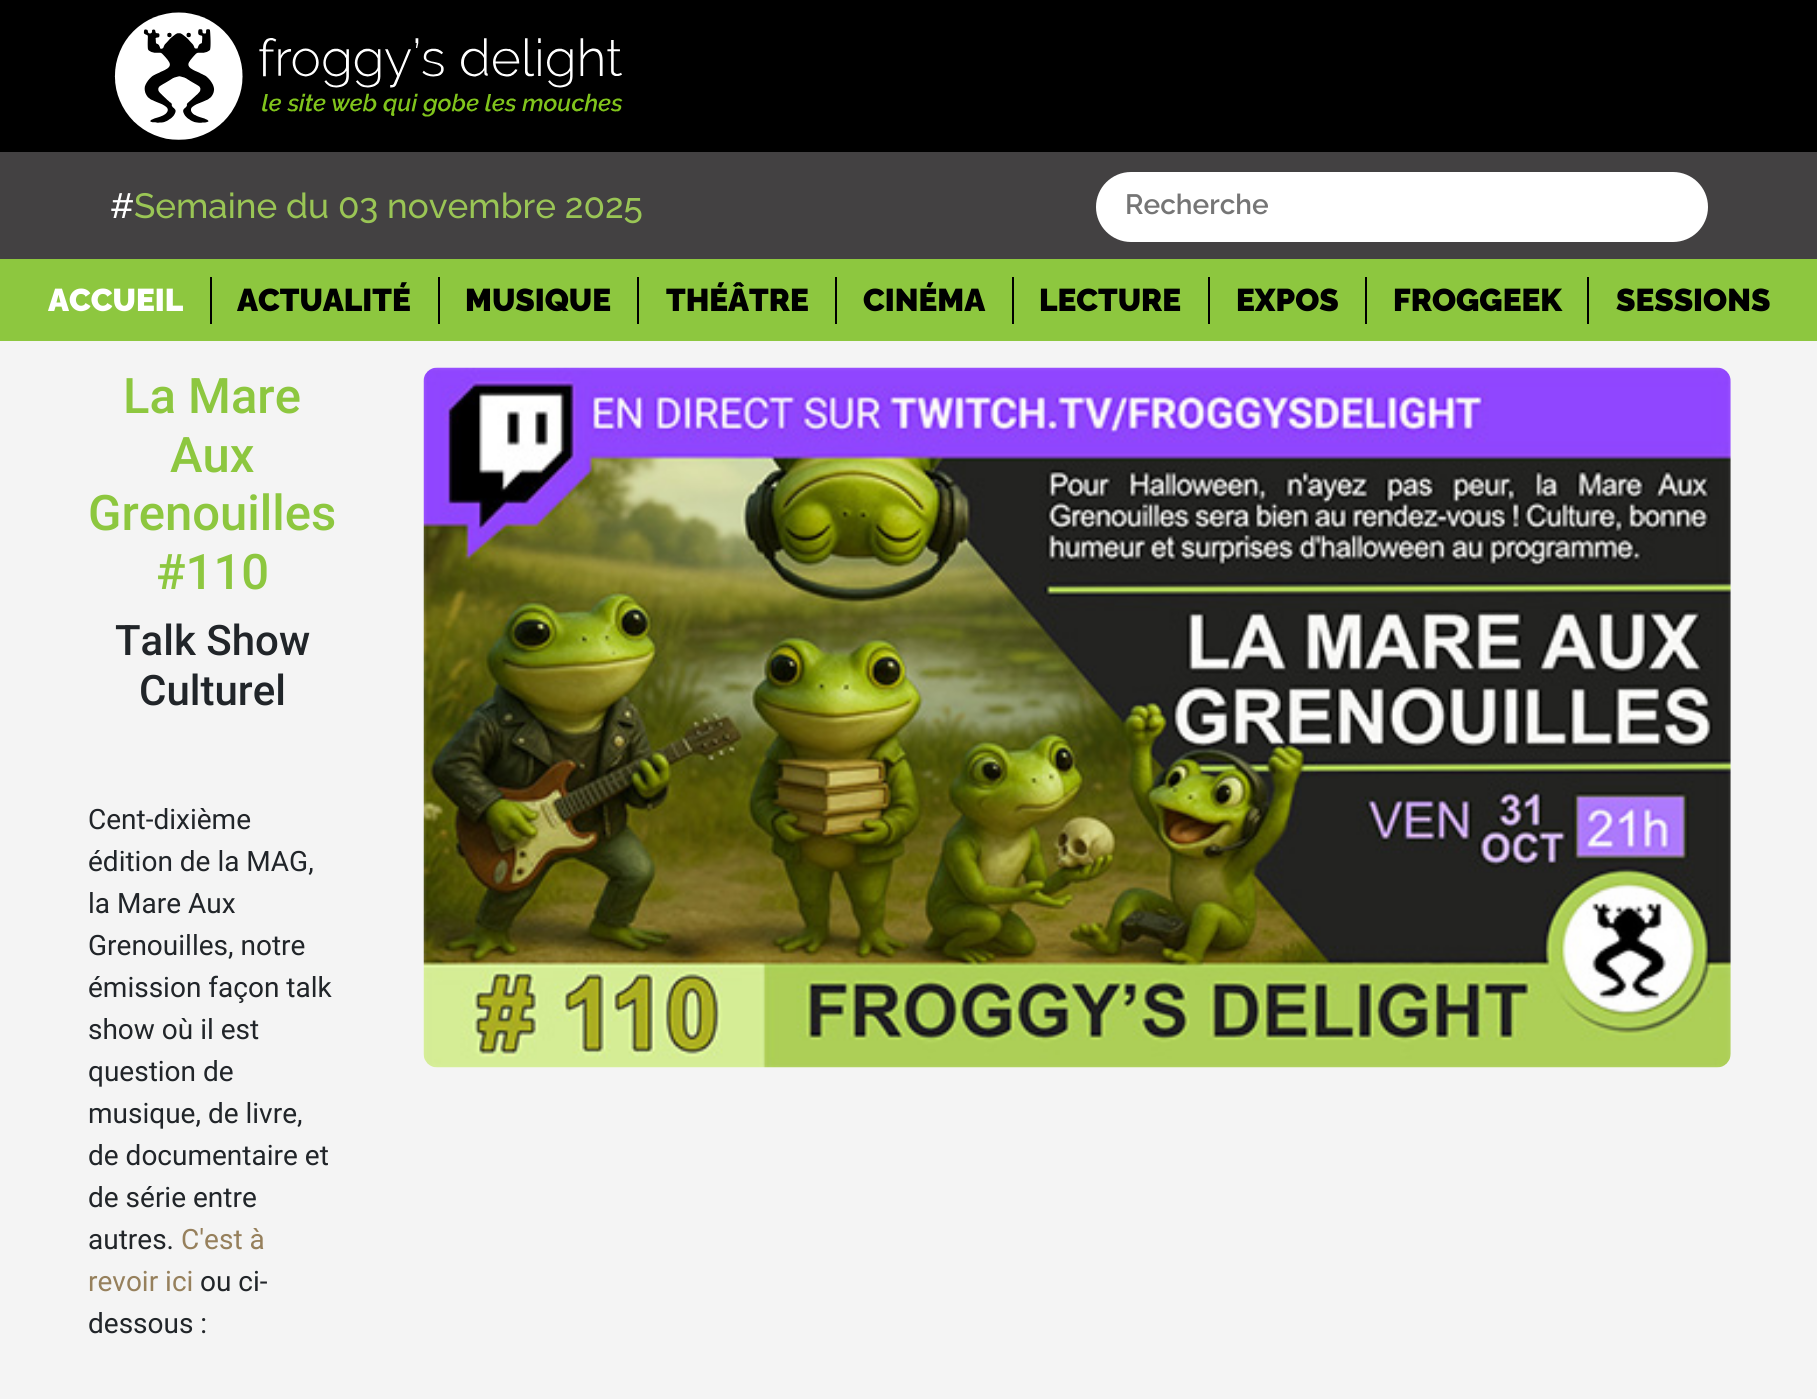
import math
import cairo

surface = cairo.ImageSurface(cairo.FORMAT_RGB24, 1817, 1399)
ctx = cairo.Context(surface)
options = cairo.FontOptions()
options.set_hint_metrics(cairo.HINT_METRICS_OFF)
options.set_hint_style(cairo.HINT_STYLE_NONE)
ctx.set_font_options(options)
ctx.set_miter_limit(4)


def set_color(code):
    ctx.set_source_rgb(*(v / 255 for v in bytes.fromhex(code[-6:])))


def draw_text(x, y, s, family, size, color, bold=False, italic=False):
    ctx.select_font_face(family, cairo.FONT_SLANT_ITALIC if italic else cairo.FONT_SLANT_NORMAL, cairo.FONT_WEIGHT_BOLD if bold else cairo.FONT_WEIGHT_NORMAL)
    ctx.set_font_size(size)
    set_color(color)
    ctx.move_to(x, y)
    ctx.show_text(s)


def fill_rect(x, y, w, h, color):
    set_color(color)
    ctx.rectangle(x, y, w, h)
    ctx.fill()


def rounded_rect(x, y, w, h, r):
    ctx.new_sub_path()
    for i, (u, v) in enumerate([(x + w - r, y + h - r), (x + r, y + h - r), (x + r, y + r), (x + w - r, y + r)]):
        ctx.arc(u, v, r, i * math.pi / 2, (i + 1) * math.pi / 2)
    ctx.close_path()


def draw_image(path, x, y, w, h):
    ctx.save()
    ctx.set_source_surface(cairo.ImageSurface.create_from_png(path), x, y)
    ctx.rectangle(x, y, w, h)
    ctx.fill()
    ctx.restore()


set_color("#f4f4f4")
ctx.paint()
fill_rect(0, 0, 1817, 152, "#000000")
draw_image("assets/img1.png", 114, 12, 509, 128)
fill_rect(0, 152, 1817, 107, "#434142")
draw_text(110, 218, "#", "Raleway Medium", 35, "#ffffff")
draw_text(134, 218, "Semaine du 03 novembre 2025", "Raleway Medium", 35, "#9ac555")
set_color("#ffffff")
rounded_rect(1096, 172, 612, 70, 35)
ctx.fill()
draw_text(1125, 214, "Recherche", "Raleway SemiBold", 28, "#757575")
fill_rect(0, 259, 1817, 82, "#8dc73f")
fill_rect(210, 277, 2, 47, "#000000")
draw_text(48, 311, "ACCUEIL", "Raleway Black", 31.5, "#ffffff")
fill_rect(438, 277, 2, 47, "#000000")
draw_text(237, 311, "ACTUALITÉ", "Raleway Black", 31.5, "#000000")
fill_rect(637, 277, 2, 47, "#000000")
draw_text(465, 311, "MUSIQUE", "Raleway Black", 31.5, "#000000")
fill_rect(835, 277, 2, 47, "#000000")
draw_text(666, 311, "THÉÂTRE", "Raleway Black", 31.5, "#000000")
fill_rect(1012, 277, 2, 47, "#000000")
draw_text(863, 311, "CINÉMA", "Raleway Black", 31.5, "#000000")
fill_rect(1208, 277, 2, 47, "#000000")
draw_text(1039, 311, "LECTURE", "Raleway Black", 31.5, "#000000")
fill_rect(1365, 277, 2, 47, "#000000")
draw_text(1236, 311, "EXPOS", "Raleway Black", 31.5, "#000000")
fill_rect(1587, 277, 2, 47, "#000000")
draw_text(1393, 311, "FROGGEEK", "Raleway Black", 31.5, "#000000")
draw_text(1616, 311, "SESSIONS", "Raleway Black", 31.5, "#000000")
draw_text(123, 413, "La Mare", "Roboto Medium", 49, "#8dc73f")
draw_text(170, 472, "Aux", "Roboto Medium", 49, "#8dc73f")
draw_text(88, 530, "Grenouilles", "Roboto Medium", 49, "#8dc73f")
draw_text(156, 589, "#110", "Roboto Medium", 49, "#8dc73f")
draw_text(115, 655, "Talk Show", "Roboto Medium", 42, "#212529")
draw_text(139, 705, "Culturel", "Roboto Medium", 42, "#212529")
draw_text(88, 829, "Cent-dixième", "Roboto", 28, "#212529")
draw_text(88, 871, "édition de la MAG,", "Roboto", 28, "#212529")
draw_text(88, 913, "la Mare Aux", "Roboto", 28, "#212529")
draw_text(88, 955, "Grenouilles, notre", "Roboto", 28, "#212529")
draw_text(88, 997, "émission façon talk", "Roboto", 28, "#212529")
draw_text(88, 1039, "show où il est", "Roboto", 28, "#212529")
draw_text(88, 1081, "question de", "Roboto", 28, "#212529")
draw_text(88, 1123, "musique, de livre,", "Roboto", 28, "#212529")
draw_text(88, 1165, "de documentaire et", "Roboto", 28, "#212529")
draw_text(88, 1207, "de série entre", "Roboto", 28, "#212529")
draw_text(88, 1249, "autres.", "Roboto", 28, "#212529")
draw_text(181, 1249, "C'est à", "Roboto", 28, "#96805c")
draw_text(88, 1291, "revoir ici", "Roboto", 28, "#96805c")
draw_text(200, 1291, "ou ci-", "Roboto", 28, "#212529")
draw_text(88, 1333, "dessous :", "Roboto", 28, "#212529")
draw_image("assets/img2.png", 423, 367, 1308, 701)
surface.write_to_png("output.png")
